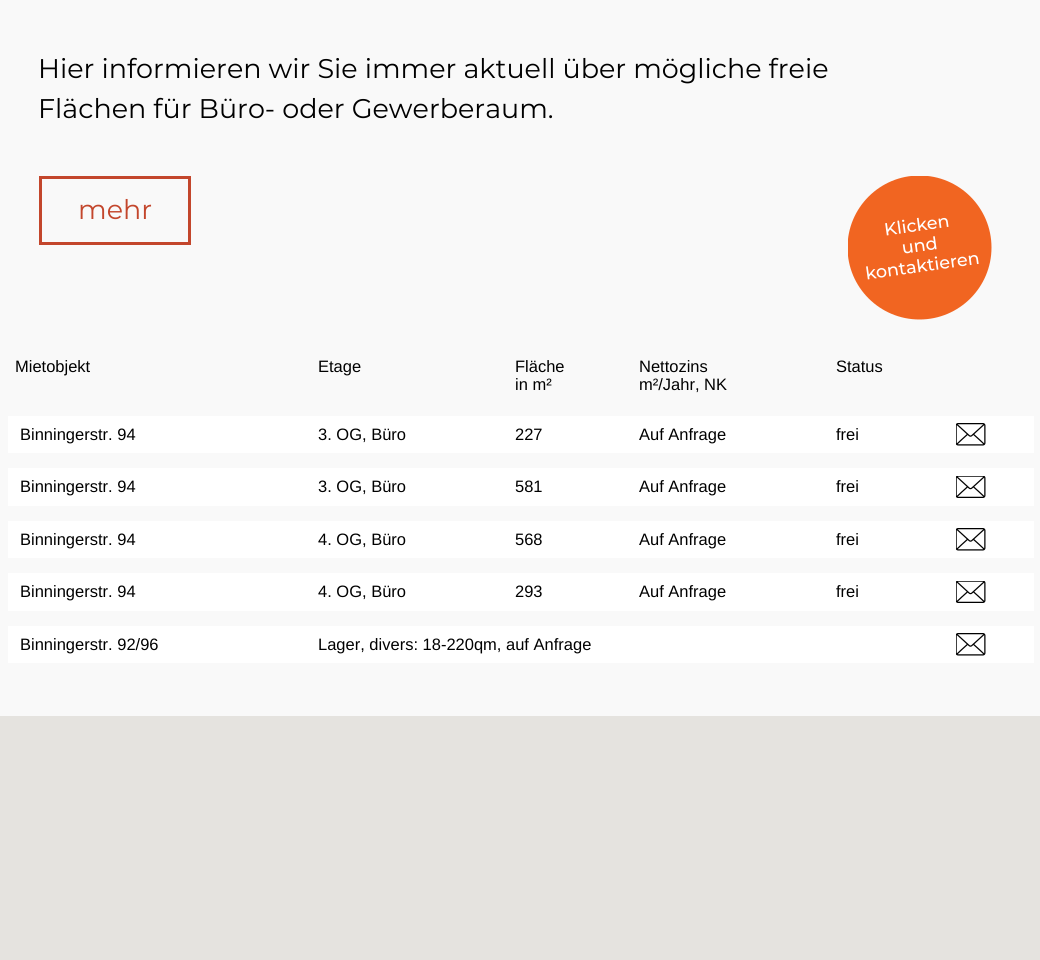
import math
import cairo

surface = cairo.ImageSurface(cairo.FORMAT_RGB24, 1040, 960)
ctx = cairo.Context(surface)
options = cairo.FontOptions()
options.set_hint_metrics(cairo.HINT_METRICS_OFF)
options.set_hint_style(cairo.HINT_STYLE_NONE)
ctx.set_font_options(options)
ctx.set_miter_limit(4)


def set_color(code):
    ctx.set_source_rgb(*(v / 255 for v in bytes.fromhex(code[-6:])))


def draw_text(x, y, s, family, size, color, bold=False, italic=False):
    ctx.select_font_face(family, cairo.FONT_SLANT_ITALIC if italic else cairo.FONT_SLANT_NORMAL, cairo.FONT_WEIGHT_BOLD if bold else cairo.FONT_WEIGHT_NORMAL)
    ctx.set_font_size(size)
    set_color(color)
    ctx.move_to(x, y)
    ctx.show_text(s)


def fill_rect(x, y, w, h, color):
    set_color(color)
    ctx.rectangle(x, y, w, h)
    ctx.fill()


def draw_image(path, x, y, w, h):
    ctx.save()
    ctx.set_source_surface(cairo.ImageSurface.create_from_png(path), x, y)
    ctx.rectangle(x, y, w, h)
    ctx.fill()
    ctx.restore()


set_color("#f9f9f9")
ctx.paint()
draw_text(38, 78, "Hier informieren wir Sie immer aktuell über mögliche freie", "Montserrat", 27, "#000000")
draw_text(38, 118, "Flächen für Büro- oder Gewerberaum.", "Montserrat", 27, "#000000")
ctx.rectangle(40.5, 177.5, 149, 66)
set_color("#c3462c")
ctx.set_line_width(3)
ctx.stroke()
draw_text(78, 219, "mehr", "Montserrat", 27, "#c3462c")
draw_image("assets/img1.png", 848, 176, 144, 144)
draw_text(15, 372, "Mietobjekt", "Liberation Sans", 16.5, "#000000")
draw_text(318, 372, "Etage", "Liberation Sans", 16.5, "#000000")
draw_text(515, 372, "Fläche", "Liberation Sans", 16.5, "#000000")
draw_text(515, 390, "in m²", "Liberation Sans", 16.5, "#000000")
draw_text(639, 372, "Nettozins", "Liberation Sans", 16.5, "#000000")
draw_text(639, 390, "m²/Jahr, NK", "Liberation Sans", 16.5, "#000000")
draw_text(836, 372, "Status", "Liberation Sans", 16.5, "#000000")
fill_rect(8, 416, 1026, 37, "#ffffff")
draw_text(20, 440, "Binningerstr. 94", "Liberation Sans", 16.5, "#000000")
draw_text(318, 440, "3. OG, Büro", "Liberation Sans", 16.5, "#000000")
draw_text(515, 440, "227", "Liberation Sans", 16.5, "#000000")
draw_text(639, 440, "Auf Anfrage", "Liberation Sans", 16.5, "#000000")
draw_text(836, 440, "frei", "Liberation Sans", 16.5, "#000000")
draw_image("assets/img2.png", 956, 423, 30, 23)
fill_rect(8, 468, 1026, 38, "#ffffff")
draw_text(20, 492, "Binningerstr. 94", "Liberation Sans", 16.5, "#000000")
draw_text(318, 492, "3. OG, Büro", "Liberation Sans", 16.5, "#000000")
draw_text(515, 492, "581", "Liberation Sans", 16.5, "#000000")
draw_text(639, 492, "Auf Anfrage", "Liberation Sans", 16.5, "#000000")
draw_text(836, 492, "frei", "Liberation Sans", 16.5, "#000000")
draw_image("assets/img3.png", 956, 476, 30, 22)
fill_rect(8, 521, 1026, 37, "#ffffff")
draw_text(20, 545, "Binningerstr. 94", "Liberation Sans", 16.5, "#000000")
draw_text(318, 545, "4. OG, Büro", "Liberation Sans", 16.5, "#000000")
draw_text(515, 545, "568", "Liberation Sans", 16.5, "#000000")
draw_text(639, 545, "Auf Anfrage", "Liberation Sans", 16.5, "#000000")
draw_text(836, 545, "frei", "Liberation Sans", 16.5, "#000000")
draw_image("assets/img2.png", 956, 528, 30, 23)
fill_rect(8, 573, 1026, 38, "#ffffff")
draw_text(20, 597, "Binningerstr. 94", "Liberation Sans", 16.5, "#000000")
draw_text(318, 597, "4. OG, Büro", "Liberation Sans", 16.5, "#000000")
draw_text(515, 597, "293", "Liberation Sans", 16.5, "#000000")
draw_text(639, 597, "Auf Anfrage", "Liberation Sans", 16.5, "#000000")
draw_text(836, 597, "frei", "Liberation Sans", 16.5, "#000000")
draw_image("assets/img3.png", 956, 581, 30, 22)
fill_rect(8, 626, 1026, 37, "#ffffff")
draw_text(20, 650, "Binningerstr. 92/96", "Liberation Sans", 16.5, "#000000")
draw_text(318, 650, "Lager, divers: 18-220qm, auf Anfrage", "Liberation Sans", 16.5, "#000000")
draw_image("assets/img2.png", 956, 633, 30, 23)
fill_rect(0, 716, 1040, 244, "#e5e3df")
surface.write_to_png("output.png")
